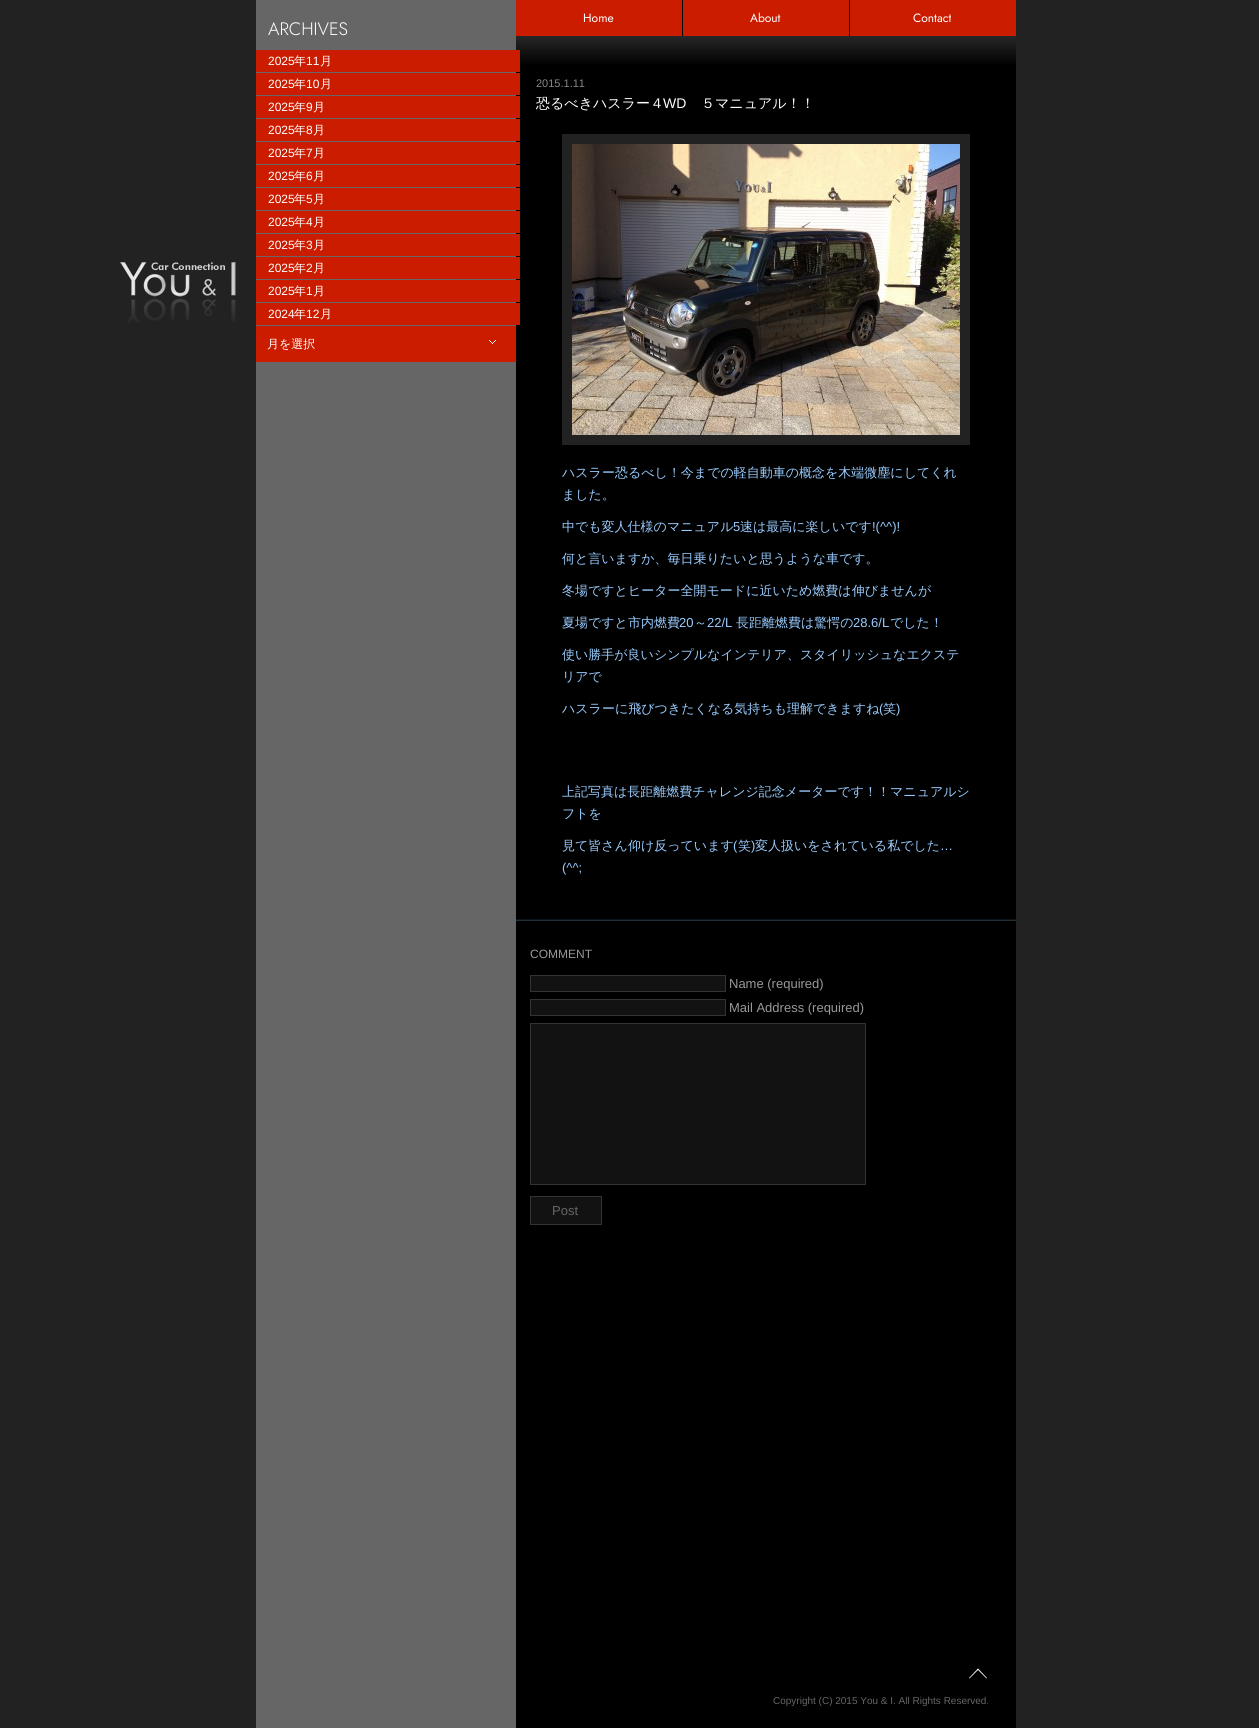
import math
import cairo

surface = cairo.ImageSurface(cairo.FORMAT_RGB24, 1259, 1728)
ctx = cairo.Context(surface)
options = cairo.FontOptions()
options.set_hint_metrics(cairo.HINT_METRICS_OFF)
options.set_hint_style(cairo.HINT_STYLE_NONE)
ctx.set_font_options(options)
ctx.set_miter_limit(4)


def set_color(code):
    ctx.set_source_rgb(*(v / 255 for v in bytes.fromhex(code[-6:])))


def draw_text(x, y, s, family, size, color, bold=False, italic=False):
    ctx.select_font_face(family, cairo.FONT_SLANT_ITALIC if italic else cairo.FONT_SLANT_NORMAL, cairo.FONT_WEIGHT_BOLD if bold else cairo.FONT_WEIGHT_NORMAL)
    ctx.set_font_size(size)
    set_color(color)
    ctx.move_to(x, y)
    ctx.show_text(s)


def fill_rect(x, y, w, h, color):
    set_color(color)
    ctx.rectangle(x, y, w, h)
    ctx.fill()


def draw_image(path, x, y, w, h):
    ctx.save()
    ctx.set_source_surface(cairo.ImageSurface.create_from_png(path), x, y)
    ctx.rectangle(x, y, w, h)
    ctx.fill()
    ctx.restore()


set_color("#222222")
ctx.paint()
draw_image("assets/img1.png", 120, 262, 116, 61)
fill_rect(256, 0, 260, 1728, "#666666")
draw_text(268, 35, "ARCHIVES", "Jost Light", 18, "#ffffff")
fill_rect(516, 0, 500, 1728, "#000000")
gradient = cairo.LinearGradient(766, 74, 766, 36)
gradient.add_color_stop_rgba(0.2, 0, 0, 0, 1)
gradient.add_color_stop_rgba(1, 0.153, 0.153, 0.153, 1)
ctx.set_source(gradient)
ctx.rectangle(516, 36, 500, 28)
ctx.fill()
fill_rect(256, 50, 264, 22, "#cc1c00")
draw_text(268, 65, "2025", "Liberation Sans", 12, "#ffffff")
draw_text(294, 65, "年", "WenQuanYi Zen Hei Medium", 12, "#ffffff")
draw_text(306, 65, "11", "Liberation Sans", 12, "#ffffff")
draw_text(320, 65, "月", "WenQuanYi Zen Hei Medium", 12, "#ffffff")
fill_rect(256, 73, 264, 22, "#cc1c00")
draw_text(268, 88, "2025", "Liberation Sans", 12, "#ffffff")
draw_text(294, 88, "年", "WenQuanYi Zen Hei Medium", 12, "#ffffff")
draw_text(306, 88, "10", "Liberation Sans", 12, "#ffffff")
draw_text(320, 88, "月", "WenQuanYi Zen Hei Medium", 12, "#ffffff")
fill_rect(256, 96, 264, 22, "#cc1c00")
draw_text(268, 111, "2025", "Liberation Sans", 12, "#ffffff")
draw_text(294, 111, "年", "WenQuanYi Zen Hei Medium", 12, "#ffffff")
draw_text(306, 111, "9", "Liberation Sans", 12, "#ffffff")
draw_text(313, 111, "月", "WenQuanYi Zen Hei Medium", 12, "#ffffff")
fill_rect(256, 119, 264, 22, "#cc1c00")
draw_text(268, 134, "2025", "Liberation Sans", 12, "#ffffff")
draw_text(294, 134, "年", "WenQuanYi Zen Hei Medium", 12, "#ffffff")
draw_text(306, 134, "8", "Liberation Sans", 12, "#ffffff")
draw_text(313, 134, "月", "WenQuanYi Zen Hei Medium", 12, "#ffffff")
fill_rect(256, 142, 264, 22, "#cc1c00")
draw_text(268, 157, "2025", "Liberation Sans", 12, "#ffffff")
draw_text(294, 157, "年", "WenQuanYi Zen Hei Medium", 12, "#ffffff")
draw_text(306, 157, "7", "Liberation Sans", 12, "#ffffff")
draw_text(313, 157, "月", "WenQuanYi Zen Hei Medium", 12, "#ffffff")
fill_rect(256, 165, 264, 22, "#cc1c00")
draw_text(268, 180, "2025", "Liberation Sans", 12, "#ffffff")
draw_text(294, 180, "年", "WenQuanYi Zen Hei Medium", 12, "#ffffff")
draw_text(306, 180, "6", "Liberation Sans", 12, "#ffffff")
draw_text(313, 180, "月", "WenQuanYi Zen Hei Medium", 12, "#ffffff")
fill_rect(256, 188, 264, 22, "#cc1c00")
draw_text(268, 203, "2025", "Liberation Sans", 12, "#ffffff")
draw_text(294, 203, "年", "WenQuanYi Zen Hei Medium", 12, "#ffffff")
draw_text(306, 203, "5", "Liberation Sans", 12, "#ffffff")
draw_text(313, 203, "月", "WenQuanYi Zen Hei Medium", 12, "#ffffff")
fill_rect(256, 211, 264, 22, "#cc1c00")
draw_text(268, 226, "2025", "Liberation Sans", 12, "#ffffff")
draw_text(294, 226, "年", "WenQuanYi Zen Hei Medium", 12, "#ffffff")
draw_text(306, 226, "4", "Liberation Sans", 12, "#ffffff")
draw_text(313, 226, "月", "WenQuanYi Zen Hei Medium", 12, "#ffffff")
fill_rect(256, 234, 264, 22, "#cc1c00")
draw_text(268, 249, "2025", "Liberation Sans", 12, "#ffffff")
draw_text(294, 249, "年", "WenQuanYi Zen Hei Medium", 12, "#ffffff")
draw_text(306, 249, "3", "Liberation Sans", 12, "#ffffff")
draw_text(313, 249, "月", "WenQuanYi Zen Hei Medium", 12, "#ffffff")
fill_rect(256, 257, 264, 22, "#cc1c00")
draw_text(268, 272, "2025", "Liberation Sans", 12, "#ffffff")
draw_text(294, 272, "年", "WenQuanYi Zen Hei Medium", 12, "#ffffff")
draw_text(306, 272, "2", "Liberation Sans", 12, "#ffffff")
draw_text(313, 272, "月", "WenQuanYi Zen Hei Medium", 12, "#ffffff")
fill_rect(256, 280, 264, 22, "#cc1c00")
draw_text(268, 295, "2025", "Liberation Sans", 12, "#ffffff")
draw_text(294, 295, "年", "WenQuanYi Zen Hei Medium", 12, "#ffffff")
draw_text(306, 295, "1", "Liberation Sans", 12, "#ffffff")
draw_text(313, 295, "月", "WenQuanYi Zen Hei Medium", 12, "#ffffff")
fill_rect(256, 303, 264, 22, "#cc1c00")
draw_text(268, 318, "2024", "Liberation Sans", 12, "#ffffff")
draw_text(294, 318, "年", "WenQuanYi Zen Hei Medium", 12, "#ffffff")
draw_text(306, 318, "12", "Liberation Sans", 12, "#ffffff")
draw_text(320, 318, "月", "WenQuanYi Zen Hei Medium", 12, "#ffffff")
fill_rect(256, 326, 260, 36, "#cc1c00")
draw_text(267, 348, "月を選択", "WenQuanYi Zen Hei Medium", 12, "#ffffff")
draw_image("assets/img2.png", 489, 340, 7, 4)
fill_rect(516, 0, 166, 36, "#cc1c00")
draw_text(583, 22, "Home", "Jost", 12, "#ffffff")
fill_rect(683, 0, 166, 36, "#cc1c00")
draw_text(750, 22, "About", "Jost", 12, "#ffffff")
fill_rect(850, 0, 166, 36, "#cc1c00")
draw_text(913, 22, "Contact", "Jost", 12, "#ffffff")
draw_text(536, 87, "2015.1.11", "Liberation Sans", 11, "#888888")
draw_text(536, 108, "恐るべきハスラー４", "WenQuanYi Zen Hei Medium", 14, "#ffffff")
draw_text(663, 108, "WD", "Liberation Sans", 14, "#ffffff")
draw_text(701, 108, "５マニュアル！！", "WenQuanYi Zen Hei Medium", 14, "#ffffff")
fill_rect(562, 134, 408, 311, "#222222")
draw_image("assets/img3.png", 572, 144, 388, 291)
draw_text(562, 477, "ハスラー恐るべし！今までの軽自動車の概念を木端微塵にしてくれ", "WenQuanYi Zen Hei Medium", 13, "#99ccff")
draw_text(562, 499, "ました。", "WenQuanYi Zen Hei Medium", 13, "#99ccff")
draw_text(562, 531, "中でも変人仕様のマニュアル", "WenQuanYi Zen Hei Medium", 13, "#99ccff")
draw_text(733, 531, "5", "Liberation Sans", 13, "#99ccff")
draw_text(740, 531, "速は最高に楽しいです", "WenQuanYi Zen Hei Medium", 13, "#99ccff")
draw_text(872, 531, "!(^^)!", "Liberation Sans", 13, "#99ccff")
draw_text(562, 563, "何と言いますか、毎日乗りたいと思うような車です。", "WenQuanYi Zen Hei Medium", 13, "#99ccff")
draw_text(562, 595, "冬場ですとヒーター全開モードに近いため燃費は伸びませんが", "WenQuanYi Zen Hei Medium", 13, "#99ccff")
draw_text(562, 627, "夏場ですと市内燃費", "WenQuanYi Zen Hei Medium", 13, "#99ccff")
draw_text(679, 627, "20", "Liberation Sans", 13, "#99ccff")
draw_text(694, 627, "～", "WenQuanYi Zen Hei Medium", 13, "#99ccff")
draw_text(707, 627, "22/L", "Liberation Sans", 13, "#99ccff")
draw_text(736, 627, "長距離燃費は驚愕の", "WenQuanYi Zen Hei Medium", 13, "#99ccff")
draw_text(853, 627, "28.6/L", "Liberation Sans", 13, "#99ccff")
draw_text(890, 627, "でした！", "WenQuanYi Zen Hei Medium", 13, "#99ccff")
draw_text(562, 659, "使い勝手が良いシンプルなインテリア、スタイリッシュなエクステ", "WenQuanYi Zen Hei Medium", 13, "#99ccff")
draw_text(562, 681, "リアで", "WenQuanYi Zen Hei Medium", 13, "#99ccff")
draw_text(562, 713, "ハスラーに飛びつきたくなる気持ちも理解できますね", "WenQuanYi Zen Hei Medium", 13, "#99ccff")
draw_text(879, 713, "(", "Liberation Sans", 13, "#99ccff")
draw_text(883, 713, "笑", "WenQuanYi Zen Hei Medium", 13, "#99ccff")
draw_text(896, 713, ")", "Liberation Sans", 13, "#99ccff")
draw_text(562, 796, "上記写真は長距離燃費チャレンジ記念メーターです！！マニュアルシ", "WenQuanYi Zen Hei Medium", 13, "#99ccff")
draw_text(562, 818, "フトを", "WenQuanYi Zen Hei Medium", 13, "#99ccff")
draw_text(562, 850, "見て皆さん仰け反っています", "WenQuanYi Zen Hei Medium", 13, "#99ccff")
draw_text(733, 850, "(", "Liberation Sans", 13, "#99ccff")
draw_text(738, 850, "笑", "WenQuanYi Zen Hei Medium", 13, "#99ccff")
draw_text(751, 850, ")", "Liberation Sans", 13, "#99ccff")
draw_text(755, 850, "変人扱いをされている私でした", "WenQuanYi Zen Hei Medium", 13, "#99ccff")
draw_text(940, 850, "…", "Liberation Sans", 13, "#99ccff")
draw_text(562, 872, "(^^;", "Liberation Sans", 13, "#99ccff")
draw_image("assets/img4.png", 516, 919, 500, 2)
draw_text(530, 958, "COMMENT", "Liberation Sans", 12, "#999999")
set_color("#121212")
ctx.rectangle(530.5, 975.5, 195, 16)
ctx.fill_preserve()
set_color("#333333")
ctx.set_line_width(1)
ctx.stroke()
draw_text(729, 988, "Name (required)", "Liberation Sans", 13, "#999999")
set_color("#121212")
ctx.rectangle(530.5, 999.5, 195, 16)
ctx.fill_preserve()
set_color("#333333")
ctx.stroke()
draw_text(729, 1012, "Mail Address (required)", "Liberation Sans", 13, "#999999")
set_color("#121212")
ctx.rectangle(530.5, 1023.5, 335, 161)
ctx.fill_preserve()
set_color("#333333")
ctx.stroke()
set_color("#121212")
ctx.rectangle(530.5, 1196.5, 71, 28)
ctx.fill_preserve()
set_color("#333333")
ctx.stroke()
draw_text(552, 1215, "Post", "Liberation Sans", 13, "#666666")
set_color("#ffffff")
ctx.new_path()
ctx.move_to(969, 1678)
ctx.line_to(978, 1668.5)
ctx.line_to(978.5, 1669.5)
ctx.line_to(969.5, 1678.5)
ctx.close_path()
ctx.fill()
ctx.new_path()
ctx.move_to(977.5, 1669.5)
ctx.line_to(978, 1668.5)
ctx.line_to(987, 1678)
ctx.line_to(986.5, 1678.5)
ctx.close_path()
ctx.fill()
draw_text(773, 1704, "Copyright (C) 2015 You & I. All Rights Reserved.", "Liberation Sans", 10, "#666666")
surface.write_to_png("output.png")
